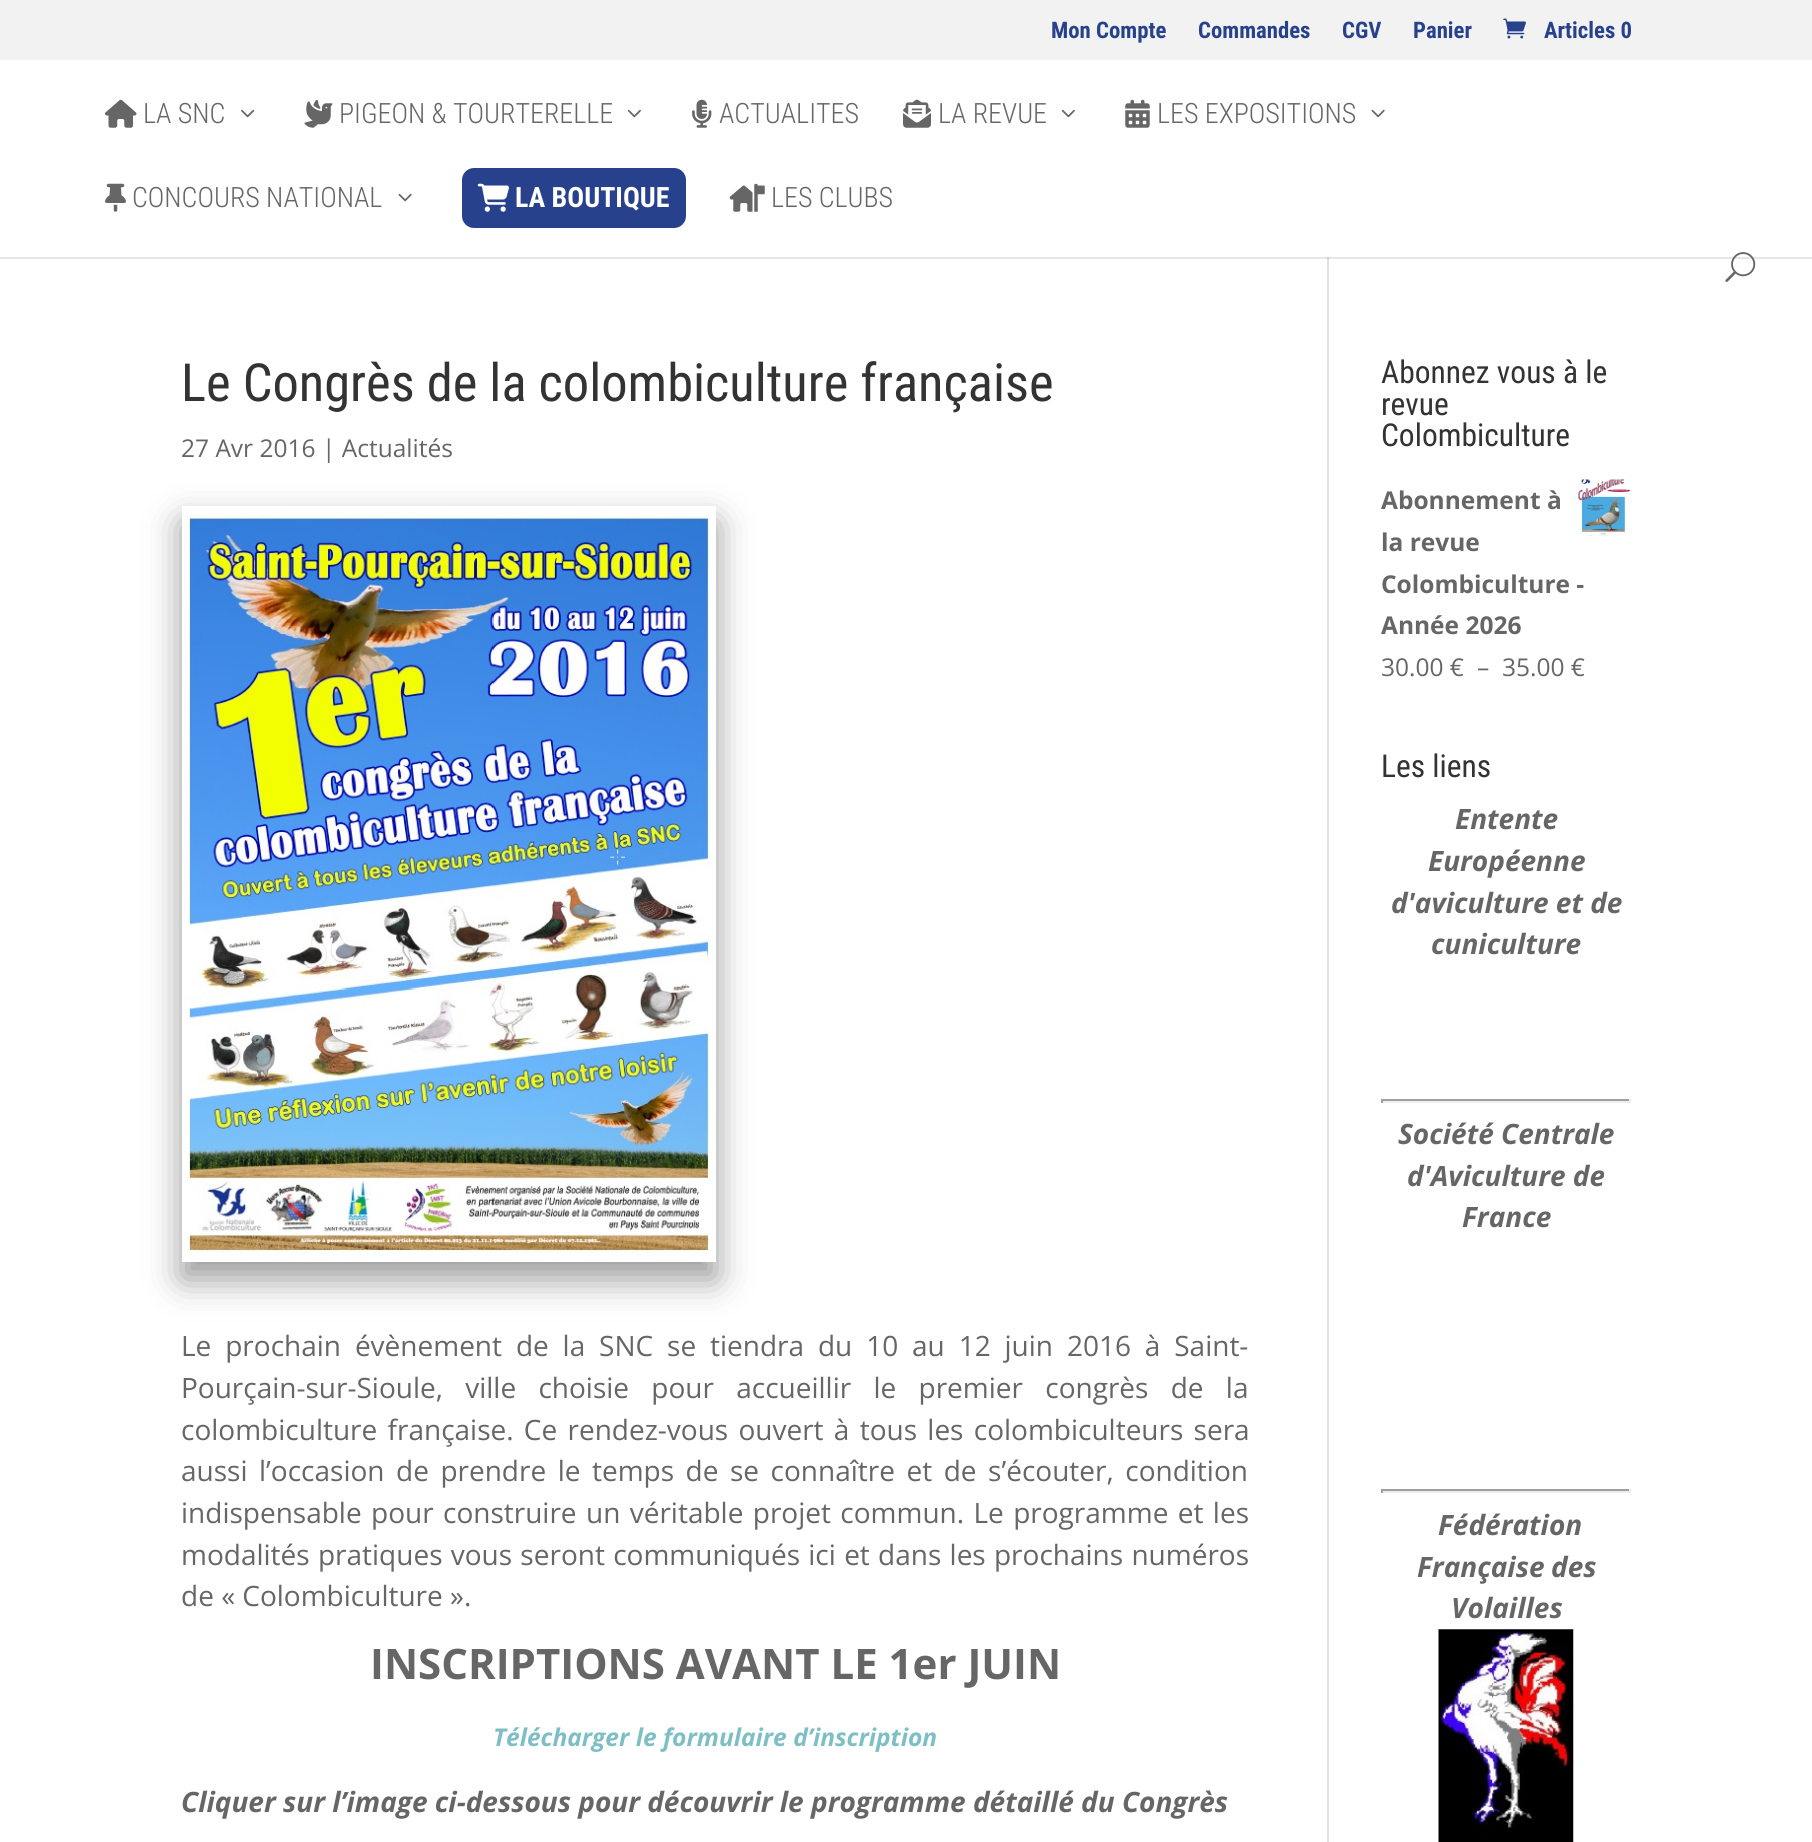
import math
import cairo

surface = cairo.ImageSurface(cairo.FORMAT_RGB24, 1812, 1842)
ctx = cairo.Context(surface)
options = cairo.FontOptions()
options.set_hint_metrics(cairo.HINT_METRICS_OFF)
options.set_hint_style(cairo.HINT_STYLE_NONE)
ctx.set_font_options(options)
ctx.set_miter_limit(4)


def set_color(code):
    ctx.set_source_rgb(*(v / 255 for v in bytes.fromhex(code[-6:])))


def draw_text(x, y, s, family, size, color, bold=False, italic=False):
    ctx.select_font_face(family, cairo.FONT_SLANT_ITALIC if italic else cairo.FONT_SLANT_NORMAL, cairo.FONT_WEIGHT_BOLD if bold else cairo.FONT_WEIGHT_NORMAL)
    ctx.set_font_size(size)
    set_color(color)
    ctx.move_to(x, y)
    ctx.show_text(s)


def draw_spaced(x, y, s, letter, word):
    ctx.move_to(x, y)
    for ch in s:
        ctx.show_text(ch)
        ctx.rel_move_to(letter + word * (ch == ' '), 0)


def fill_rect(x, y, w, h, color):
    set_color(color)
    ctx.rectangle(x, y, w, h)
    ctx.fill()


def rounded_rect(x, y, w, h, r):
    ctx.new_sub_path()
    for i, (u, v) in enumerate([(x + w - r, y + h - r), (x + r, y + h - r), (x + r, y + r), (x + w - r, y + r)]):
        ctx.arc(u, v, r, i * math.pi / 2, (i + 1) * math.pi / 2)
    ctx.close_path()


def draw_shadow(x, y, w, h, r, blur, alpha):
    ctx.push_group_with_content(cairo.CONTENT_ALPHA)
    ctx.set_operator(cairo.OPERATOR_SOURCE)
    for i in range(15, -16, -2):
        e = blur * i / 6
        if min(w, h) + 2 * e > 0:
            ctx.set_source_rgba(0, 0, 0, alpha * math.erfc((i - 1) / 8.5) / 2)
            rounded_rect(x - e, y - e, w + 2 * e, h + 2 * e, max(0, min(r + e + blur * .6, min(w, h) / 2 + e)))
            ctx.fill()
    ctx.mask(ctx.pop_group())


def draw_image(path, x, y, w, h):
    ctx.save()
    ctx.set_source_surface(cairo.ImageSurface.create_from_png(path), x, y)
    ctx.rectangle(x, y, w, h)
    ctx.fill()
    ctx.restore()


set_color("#ffffff")
ctx.paint()
fill_rect(0, 257, 1812, 2, "#e6e6e6")
fill_rect(0, 0, 1812, 60, "#f2f2f2")
draw_text(1051, 38, "Mon Compte", "Roboto Condensed", 22.75, "#27418c", bold=True)
draw_text(1198, 38, "Commandes", "Roboto Condensed", 22.75, "#27418c", bold=True)
draw_text(1342, 38, "CGV", "Roboto Condensed", 22.75, "#27418c", bold=True)
draw_text(1413, 38, "Panier", "Roboto Condensed", 22.75, "#27418c", bold=True)
draw_image("assets/img1.png", 1503, 18, 23, 21)
draw_text(1544, 38, "Articles 0", "Roboto Condensed", 22.75, "#27418c", bold=True)
fill_rect(1327, 256, 2, 1586, "#e2e2e2")
fill_rect(1327, 256, 2, 1, "#ffffff")
draw_image("assets/img2.png", 105, 99, 32, 29)
draw_text(143, 123, "LA SNC", "Roboto Condensed Light", 28, "#666666")
draw_image("assets/img3.png", 241, 109, 14, 9)
draw_image("assets/img4.png", 304, 99, 29, 29)
draw_text(339, 123, "PIGEON & TOURTERELLE", "Roboto Condensed Light", 28, "#666666")
draw_image("assets/img5.png", 627, 109, 14, 9)
draw_image("assets/img6.png", 692, 99, 20, 29)
draw_text(719, 123, "ACTUALITES", "Roboto Condensed Light", 28, "#666666")
draw_image("assets/img7.png", 903, 99, 28, 29)
draw_text(938, 123, "LA REVUE", "Roboto Condensed Light", 28, "#666666")
draw_image("assets/img5.png", 1061, 109, 14, 9)
draw_image("assets/img8.png", 1125, 99, 25, 29)
draw_text(1157, 123, "LES EXPOSITIONS", "Roboto Condensed Light", 28, "#666666")
draw_image("assets/img9.png", 1371, 109, 14, 9)
draw_image("assets/img10.png", 105, 183, 21, 29)
draw_text(132, 207, "CONCOURS NATIONAL", "Roboto Condensed Light", 28, "#666666")
draw_image("assets/img9.png", 398, 193, 14, 9)
set_color("#27418c")
rounded_rect(462, 168, 224, 60, 12)
ctx.fill()
draw_image("assets/img11.png", 477, 183, 32, 29)
draw_text(515, 207, "LA BOUTIQUE", "Roboto Condensed", 28, "#ffffff", bold=True)
draw_image("assets/img12.png", 729, 183, 36, 29)
draw_text(771, 207, "LES CLUBS", "Roboto Condensed Light", 28, "#666666")
draw_image("assets/img13.png", 1725, 252, 31, 30)
fill_rect(1327, 257, 2, 2, "#cbcbcb")
draw_text(181, 401, "Le Congrès de la colombiculture française", "Roboto Condensed", 52.5, "#333333")
draw_text(181, 457, "27 Avr 2016 | Actualités", "Open Sans", 24.5, "#666666")
ctx.save()
ctx.set_fill_rule(cairo.FILL_RULE_EVEN_ODD)
ctx.new_path()
ctx.move_to(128, 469)
ctx.line_to(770, 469)
ctx.line_to(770, 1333)
ctx.line_to(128, 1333)
ctx.close_path()
ctx.move_to(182, 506)
ctx.line_to(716, 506)
ctx.line_to(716, 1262)
ctx.line_to(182, 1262)
ctx.close_path()
ctx.clip()
set_color("#999999")
draw_shadow(182, 523, 534, 756, 0, 17.5, 1)
ctx.restore()
draw_image("assets/img14.png", 182, 508, 534, 754)
ctx.set_font_size(28)
draw_spaced(181, 1356, "Le prochain évènement de la SNC se tiendra du 10 au 12 juin 2016 à Saint-", 0, 6.6)
draw_spaced(181, 1398, "Pourçain-sur-Sioule, ville choisie pour accueillir le premier congrès de la", 0, 15)
draw_spaced(181, 1440, "colombiculture française. Ce rendez-vous ouvert à tous les colombiculteurs sera", 0, 3)
draw_spaced(181, 1481, "aussi l’occasion de prendre le temps de se connaître et de s’écouter, condition", 0, 4.25)
draw_spaced(181, 1523, "indispensable pour construire un véritable projet commun. Le programme et les", 0, 2.1)
draw_spaced(181, 1565, "modalités pratiques vous seront communiqués ici et dans les prochains numéros", 0, 1)
draw_text(181, 1606, "de « Colombiculture ».", "Open Sans", 28, "#666666")
draw_text(370, 1679, "INSCRIPTIONS AVANT LE 1er JUIN", "Open Sans", 42, "#666666", bold=True)
draw_text(493, 1746, "Télécharger le formulaire d’inscription", "Open Sans", 24.5, "#7ebec5", bold=True, italic=True)
draw_text(181, 1812, "Cliquer sur l’image ci-dessous pour découvrir le programme détaillé du Congrès", "Open Sans", 28, "#666666", bold=True, italic=True)
draw_text(1381, 383, "Abonnez vous à le", "Roboto Condensed", 31.5, "#333333")
draw_text(1381, 415, "revue", "Roboto Condensed", 31.5, "#333333")
draw_text(1381, 446, "Colombiculture", "Roboto Condensed", 31.5, "#333333")
draw_text(1381, 509, "Abonnement à", "Open Sans", 24.5, "#666666", bold=True)
draw_image("assets/img15.png", 1577, 479, 54, 57)
draw_text(1381, 551, "la revue", "Open Sans", 24.5, "#666666", bold=True)
draw_text(1381, 593, "Colombiculture -", "Open Sans", 24.5, "#666666", bold=True)
draw_text(1381, 634, "Année 2026", "Open Sans", 24.5, "#666666", bold=True)
draw_text(1381, 676, "30.00 €", "Open Sans", 24.5, "#666666")
draw_text(1477, 676, "–", "Open Sans", 24.5, "#666666")
draw_text(1502, 676, "35.00 €", "Open Sans", 24.5, "#666666")
draw_text(1381, 777, "Les liens", "Roboto Condensed", 31.5, "#333333")
draw_text(1455, 829, "Entente", "Open Sans", 28, "#666666", bold=True, italic=True)
draw_text(1428, 871, "Européenne", "Open Sans", 28, "#666666", bold=True, italic=True)
draw_text(1391, 913, "d'aviculture et de", "Open Sans", 28, "#666666", bold=True, italic=True)
draw_text(1431, 954, "cuniculture", "Open Sans", 28, "#666666", bold=True, italic=True)
fill_rect(1381, 1099, 250, 2, "#9f9f9f")
fill_rect(1629, 1099, 2, 4, "#eeeeee")
fill_rect(1381, 1101, 250, 2, "#eeeeee")
fill_rect(1381, 1099, 2, 4, "#9f9f9f")
draw_text(1398, 1144, "Société Centrale", "Open Sans", 28, "#666666", bold=True, italic=True)
draw_text(1407, 1186, "d'Aviculture de", "Open Sans", 28, "#666666", bold=True, italic=True)
draw_text(1462, 1227, "France", "Open Sans", 28, "#666666", bold=True, italic=True)
fill_rect(1381, 1489, 250, 2, "#9f9f9f")
fill_rect(1629, 1489, 2, 4, "#eeeeee")
fill_rect(1381, 1491, 250, 2, "#eeeeee")
fill_rect(1381, 1489, 2, 4, "#9f9f9f")
draw_text(1438, 1535, "Fédération", "Open Sans", 28, "#666666", bold=True, italic=True)
draw_text(1417, 1577, "Française", "Open Sans", 28, "#666666", bold=True, italic=True)
draw_text(1551, 1577, "des", "Open Sans", 28, "#666666", bold=True, italic=True)
draw_text(1451, 1618, "Volailles", "Open Sans", 28, "#666666", bold=True, italic=True)
draw_image("assets/img16.png", 1438, 1629, 136, 213)
surface.write_to_png("output.png")
